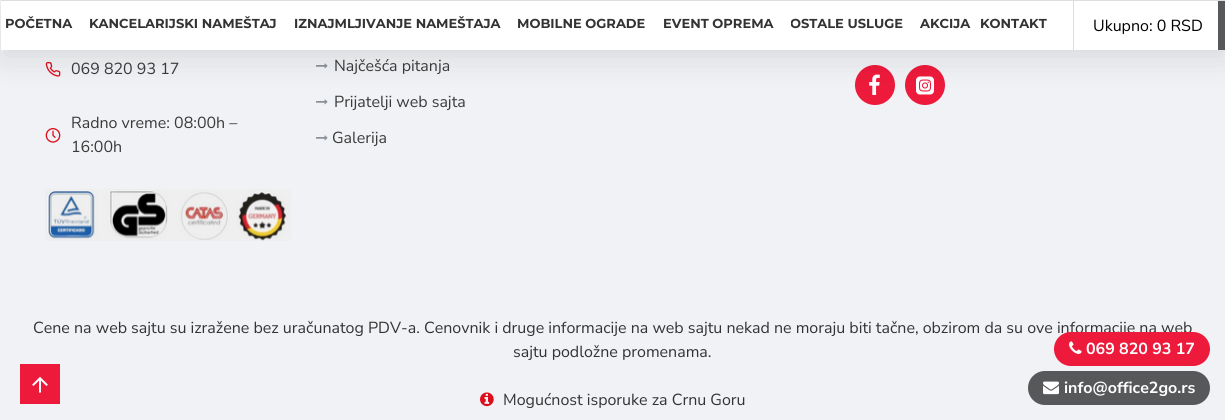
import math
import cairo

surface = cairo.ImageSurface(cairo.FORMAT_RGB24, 1225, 420)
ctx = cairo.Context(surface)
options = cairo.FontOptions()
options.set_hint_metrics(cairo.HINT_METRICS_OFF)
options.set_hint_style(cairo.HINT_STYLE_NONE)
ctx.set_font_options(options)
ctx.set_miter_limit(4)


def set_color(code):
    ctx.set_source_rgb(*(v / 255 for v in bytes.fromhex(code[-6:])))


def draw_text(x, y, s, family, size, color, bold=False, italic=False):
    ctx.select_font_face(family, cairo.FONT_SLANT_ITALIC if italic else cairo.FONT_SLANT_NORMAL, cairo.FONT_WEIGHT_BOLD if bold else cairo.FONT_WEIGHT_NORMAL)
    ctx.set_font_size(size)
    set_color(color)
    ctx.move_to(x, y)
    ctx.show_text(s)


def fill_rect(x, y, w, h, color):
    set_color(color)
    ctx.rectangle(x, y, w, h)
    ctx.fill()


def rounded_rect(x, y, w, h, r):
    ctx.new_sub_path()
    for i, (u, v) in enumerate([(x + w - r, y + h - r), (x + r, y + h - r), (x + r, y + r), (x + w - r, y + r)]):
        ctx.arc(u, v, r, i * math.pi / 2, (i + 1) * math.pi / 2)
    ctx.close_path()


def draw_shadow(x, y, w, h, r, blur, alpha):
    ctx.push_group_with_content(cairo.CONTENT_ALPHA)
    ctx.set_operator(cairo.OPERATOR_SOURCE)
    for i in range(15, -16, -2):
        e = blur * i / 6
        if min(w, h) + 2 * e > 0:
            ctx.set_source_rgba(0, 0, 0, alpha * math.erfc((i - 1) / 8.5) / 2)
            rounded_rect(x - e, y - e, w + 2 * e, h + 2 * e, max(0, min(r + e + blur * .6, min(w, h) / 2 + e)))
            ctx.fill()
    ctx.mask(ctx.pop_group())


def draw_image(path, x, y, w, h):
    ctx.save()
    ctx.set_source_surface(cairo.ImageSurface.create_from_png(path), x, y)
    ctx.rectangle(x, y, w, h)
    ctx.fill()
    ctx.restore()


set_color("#f0f2f5")
ctx.paint()
draw_image("assets/img1.png", 45, 62, 16, 15)
draw_image("assets/img4.png", 316, 63, 12, 6)
draw_image("assets/img4.png", 316, 99, 12, 6)
set_color("#ed1a3b")
ctx.arc(875, 85, 20, 0, 2 * math.pi)
ctx.fill()
draw_image("assets/img5.png", 869, 74, 11, 21)
ctx.arc(925, 85, 20, 0, 2 * math.pi)
ctx.fill()
draw_image("assets/img6.png", 916, 76, 18, 19)
set_color("#000000")
draw_shadow(1, 10, 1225, 50, 0, 15, 0.1)
fill_rect(1, 1, 1217, 49, "#ffffff")
fill_rect(1, 0, 1224, 1, "#dddddd")
draw_text(5, 28, "POČETNA", "Montserrat", 13, "#333333", bold=True)
draw_text(89, 28, "KANCELARIJSKI NAMEŠTAJ", "Montserrat", 13, "#333333", bold=True)
draw_text(294, 28, "IZNAJMLJIVANJE NAMEŠTAJA", "Montserrat", 13, "#333333", bold=True)
draw_text(517, 28, "MOBILNE OGRADE", "Montserrat", 13, "#333333", bold=True)
draw_text(663, 28, "EVENT OPREMA", "Montserrat", 13, "#333333", bold=True)
ctx.save()
ctx.rectangle(791, 14, 113, 20)
ctx.clip()
draw_text(790, 28, "OSTALE USLUGE", "Montserrat", 13, "#333333", bold=True)
ctx.restore()
draw_text(920, 28, "AKCIJA", "Montserrat", 13, "#333333", bold=True)
draw_text(980, 28, "KONTAKT", "Montserrat", 13, "#333333", bold=True)
fill_rect(1073, 0, 1, 50, "#dddddd")
draw_text(1093, 31, "Ukupno: 0 RSD", "Nunito Sans", 16, "#000000")
fill_rect(1218, 1, 7, 49, "#57585a")
draw_text(71, 74, "069 820 93 17", "Nunito Sans", 16, "#3a3a3a")
draw_image("assets/img2.png", 45, 128, 16, 15)
draw_text(71, 128, "Radno vreme: 08:00h –", "Nunito Sans", 16, "#3a3a3a")
draw_text(71, 152, "16:00h", "Nunito Sans", 16, "#3a3a3a")
draw_image("assets/img3.png", 45, 189, 246, 52)
draw_text(334, 71, "Najčešća pitanja", "Nunito Sans", 16, "#3a3a3a")
draw_text(334, 107, "Prijatelji web sajta", "Nunito Sans", 16, "#3a3a3a")
draw_image("assets/img4.png", 316, 135, 12, 6)
draw_text(332, 143, "Galerija", "Nunito Sans", 16, "#3a3a3a")
draw_text(33, 333, "Cene na web sajtu su izražene bez uračunatog PDV-a. Cenovnik i druge informacije na web sajtu nekad ne moraju biti tačne, obzirom da su ove informacije na web", "Nunito Sans", 16, "#333333")
draw_text(513, 357, "sajtu podložne promenama.", "Nunito Sans", 16, "#333333")
draw_image("assets/img7.png", 480, 392, 14, 15)
draw_text(503, 405, "Mogućnost isporuke za Crnu Goru", "Nunito Sans", 16, "#333333")
set_color("#ed1a3b")
rounded_rect(1054, 332, 156, 34, 17)
ctx.fill()
draw_image("assets/img8.png", 1069, 341, 13, 13)
draw_text(1086, 354, "069 820 93 17", "Nunito Sans", 16, "#ffffff", bold=True)
set_color("#57585a")
rounded_rect(1028, 371, 182, 34, 17)
ctx.fill()
draw_image("assets/img9.png", 1043, 381, 16, 14)
draw_text(1064, 393, "info@office2go.rs", "Nunito Sans", 16, "#ffffff", bold=True)
fill_rect(20, 364, 40, 40, "#ed1a3b")
draw_image("assets/img10.png", 32, 376, 16, 17)
surface.write_to_png("output.png")
